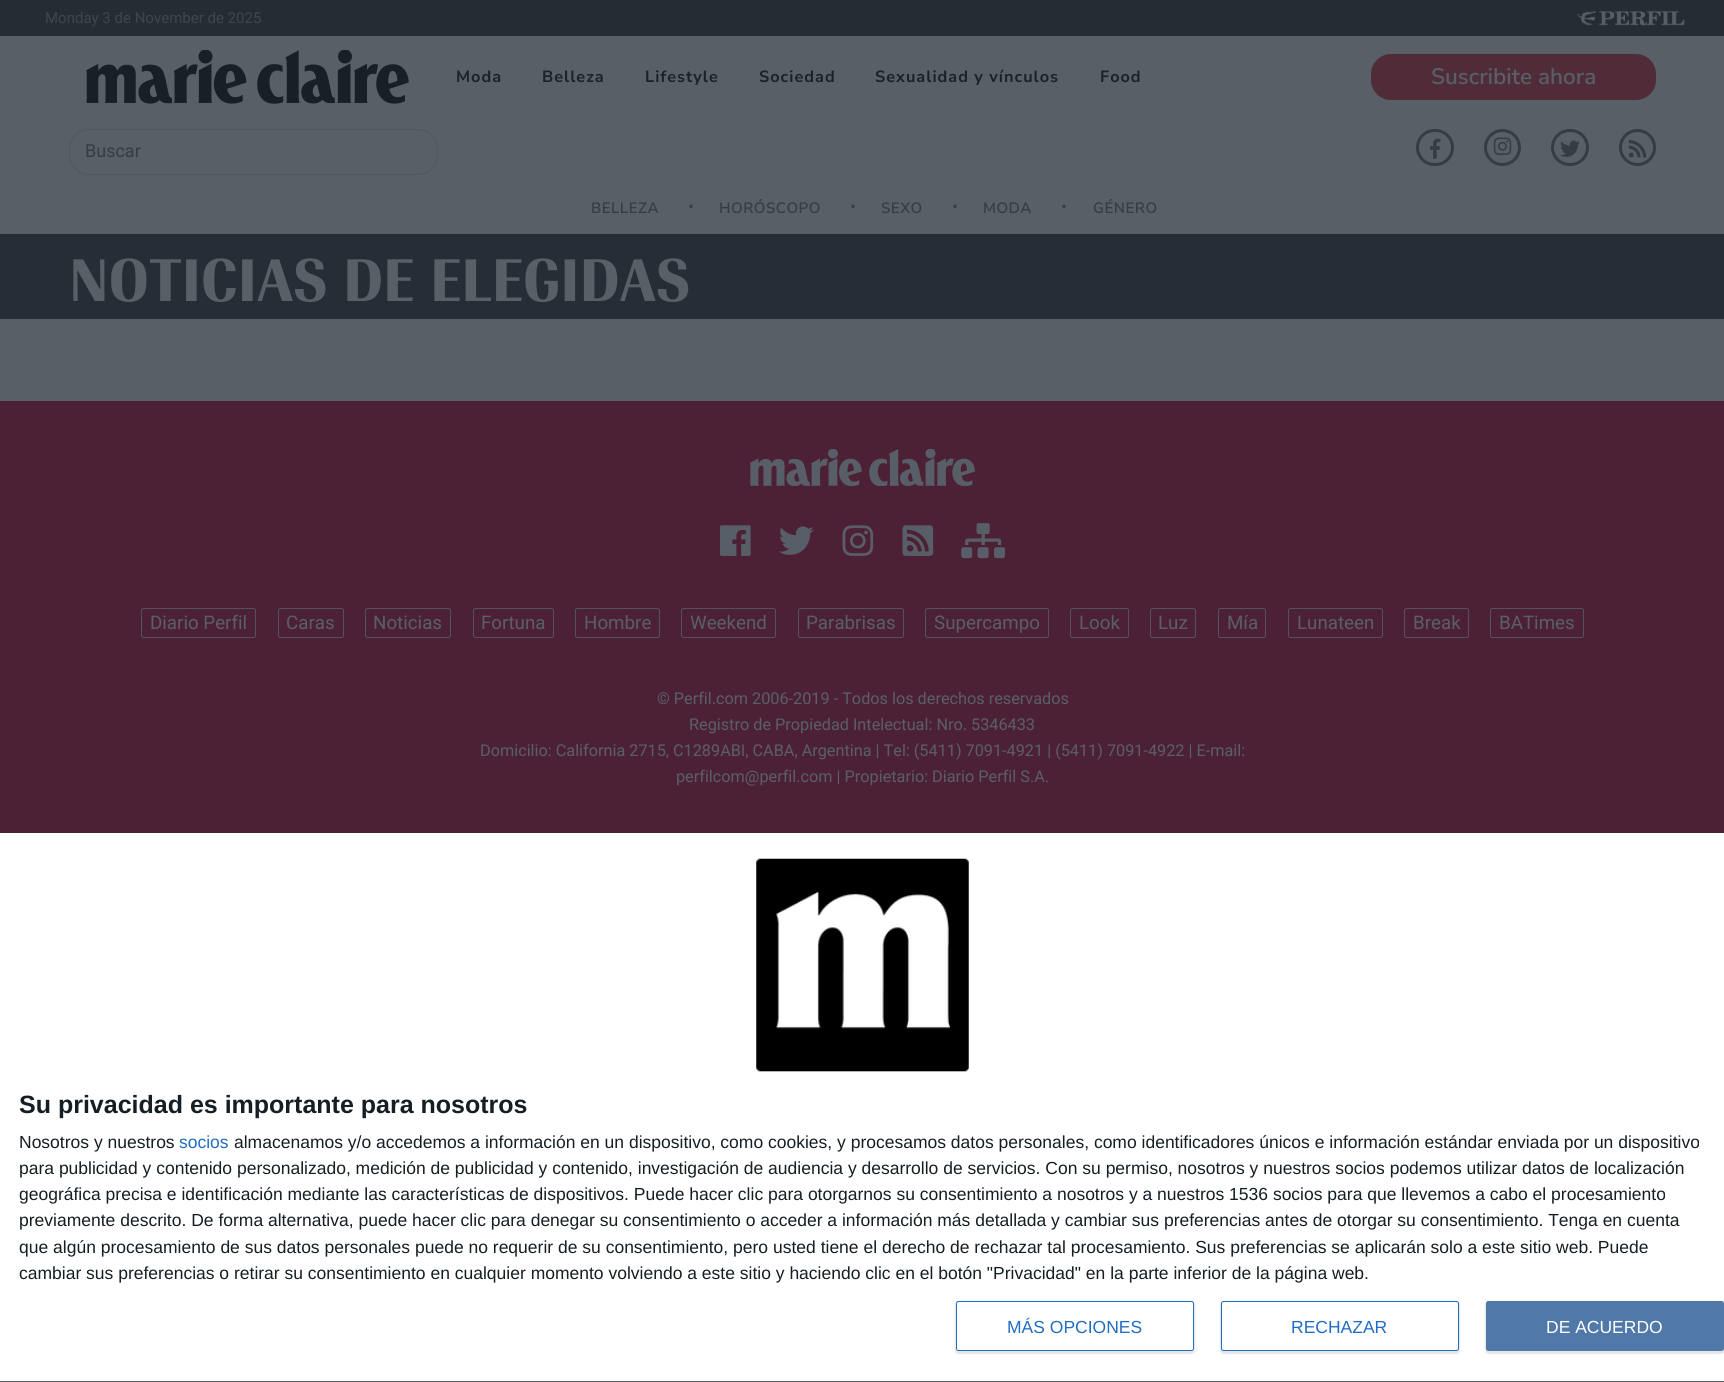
import math
import cairo

surface = cairo.ImageSurface(cairo.FORMAT_RGB24, 1724, 1382)
ctx = cairo.Context(surface)
options = cairo.FontOptions()
options.set_hint_metrics(cairo.HINT_METRICS_OFF)
options.set_hint_style(cairo.HINT_STYLE_NONE)
ctx.set_font_options(options)
ctx.set_miter_limit(4)


def set_color(code):
    ctx.set_source_rgb(*(v / 255 for v in bytes.fromhex(code[-6:])))


def draw_text(x, y, s, family, size, color, bold=False, italic=False):
    ctx.select_font_face(family, cairo.FONT_SLANT_ITALIC if italic else cairo.FONT_SLANT_NORMAL, cairo.FONT_WEIGHT_BOLD if bold else cairo.FONT_WEIGHT_NORMAL)
    ctx.set_font_size(size)
    set_color(color)
    ctx.move_to(x, y)
    ctx.show_text(s)


def draw_spaced(x, y, s, letter, word):
    ctx.move_to(x, y)
    for ch in s:
        ctx.show_text(ch)
        ctx.rel_move_to(letter + word * (ch == ' '), 0)


def fill_rect(x, y, w, h, color):
    set_color(color)
    ctx.rectangle(x, y, w, h)
    ctx.fill()


def rounded_rect(x, y, w, h, r):
    ctx.new_sub_path()
    for i, (u, v) in enumerate([(x + w - r, y + h - r), (x + r, y + h - r), (x + r, y + r), (x + w - r, y + r)]):
        ctx.arc(u, v, r, i * math.pi / 2, (i + 1) * math.pi / 2)
    ctx.close_path()


def draw_shadow(x, y, w, h, r, blur, alpha):
    ctx.push_group_with_content(cairo.CONTENT_ALPHA)
    ctx.set_operator(cairo.OPERATOR_SOURCE)
    for i in range(15, -16, -2):
        e = blur * i / 6
        if min(w, h) + 2 * e > 0:
            ctx.set_source_rgba(0, 0, 0, alpha * math.erfc((i - 1) / 8.5) / 2)
            rounded_rect(x - e, y - e, w + 2 * e, h + 2 * e, max(0, min(r + e + blur * .6, min(w, h) / 2 + e)))
            ctx.fill()
    ctx.mask(ctx.pop_group())


def draw_image(path, x, y, w, h):
    ctx.save()
    ctx.set_source_surface(cairo.ImageSurface.create_from_png(path), x, y)
    ctx.rectangle(x, y, w, h)
    ctx.fill()
    ctx.restore()


set_color("#595f67")
ctx.paint()
fill_rect(0, 0, 1724, 36, "#262c34")
draw_text(45, 23, "Monday 3 de November de 2025", "Roboto", 15, "#3f454d")
draw_image("assets/img1.png", 1576, 10, 109, 16)
draw_image("assets/img2.png", 86, 50, 323, 54)
ctx.select_font_face("Nunito Sans", cairo.FONT_SLANT_NORMAL, cairo.FONT_WEIGHT_BOLD)
ctx.set_font_size(16.25)
set_color("#1b212a")
draw_spaced(456, 82, "Moda", 1, 0)
draw_spaced(542, 82, "Belleza", 1, 0)
draw_spaced(645, 82, "Lifestyle", 1, 0)
draw_spaced(759, 82, "Sociedad", 1, 0)
draw_spaced(875, 82, "Sexualidad y vínculos", 1, 0)
draw_spaced(1100, 82, "Food", 1, 0)
set_color("#502c38")
rounded_rect(1371, 54, 285, 46, 20)
ctx.fill()
draw_text(1431, 84, "Suscribite ahora", "Nunito Sans SemiBold", 22.5, "#595f67")
rounded_rect(69.5, 129.5, 368, 45, 19.5)
set_color("#505761")
ctx.set_line_width(1)
ctx.stroke()
draw_text(85, 157, "Buscar", "Roboto", 18, "#343c46")
rounded_rect(1417.5, 130.5, 35, 34, 17)
ctx.set_line_width(3)
ctx.stroke()
draw_image("assets/img3.png", 1430, 138, 11, 21)
ctx.arc(1502.5, 147.5, 17, 0, 2 * math.pi)
ctx.stroke()
draw_image("assets/img4.png", 1493, 137, 19, 18)
rounded_rect(1552.5, 130.5, 35, 34, 17)
ctx.stroke()
draw_image("assets/img5.png", 1560, 140, 20, 17)
ctx.arc(1637.5, 147.5, 17, 0, 2 * math.pi)
ctx.stroke()
draw_image("assets/img6.png", 1628, 140, 19, 18)
ctx.select_font_face("Nunito Sans SemiBold")
ctx.set_font_size(15)
draw_spaced(591, 213, "BELLEZA", 0.5, 0)
ctx.set_font_size(25)
draw_spaced(688, 213, "·", 0.5, 0)
ctx.set_font_size(15)
draw_spaced(719, 213, "HORÓSCOPO", 0.5, 0)
ctx.set_font_size(25)
draw_spaced(850, 213, "·", 0.5, 0)
ctx.set_font_size(15)
draw_spaced(881, 213, "SEXO", 0.5, 0)
ctx.set_font_size(25)
draw_spaced(952, 213, "·", 0.5, 0)
ctx.set_font_size(15)
draw_spaced(983, 213, "MODA", 0.5, 0)
ctx.set_font_size(25)
draw_spaced(1061, 213, "·", 0.5, 0)
ctx.set_font_size(15)
draw_spaced(1093, 213, "GÉNERO", 0.5, 0)
fill_rect(0, 234, 1724, 85, "#262d37")
draw_text(69, 301, "NOTICIAS DE ELEGIDAS", "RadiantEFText", 62.5, "#595f67", bold=True)
fill_rect(0, 401, 1724, 432, "#4d2135")
draw_image("assets/img7.png", 750, 449, 225, 37)
draw_image("assets/img8.png", 720, 525, 31, 31)
draw_image("assets/img9.png", 779, 526, 35, 29)
draw_image("assets/img10.png", 842, 525, 32, 31)
draw_image("assets/img11.png", 902, 525, 32, 31)
draw_image("assets/img12.png", 961, 523, 44, 36)
rounded_rect(141.5, 608.5, 114, 29, 2)
set_color("#56525d")
ctx.set_line_width(1)
ctx.stroke()
draw_text(150, 629, "Diario Perfil", "Roboto", 18.75, "#595f67")
rounded_rect(278.5, 608.5, 65, 29, 2)
set_color("#56525d")
ctx.stroke()
draw_text(286, 629, "Caras", "Roboto", 18.75, "#595f67")
rounded_rect(365.5, 608.5, 85, 29, 2)
set_color("#56525d")
ctx.stroke()
draw_text(373, 629, "Noticias", "Roboto", 18.75, "#595f67")
rounded_rect(473.5, 608.5, 80, 29, 2)
set_color("#56525d")
ctx.stroke()
draw_text(481, 629, "Fortuna", "Roboto", 18.75, "#595f67")
rounded_rect(575.5, 608.5, 84, 29, 2)
set_color("#56525d")
ctx.stroke()
draw_text(584, 629, "Hombre", "Roboto", 18.75, "#595f67")
rounded_rect(681.5, 608.5, 94, 29, 2)
set_color("#56525d")
ctx.stroke()
draw_text(690, 629, "Weekend", "Roboto", 18.75, "#595f67")
rounded_rect(798.5, 608.5, 105, 29, 2)
set_color("#56525d")
ctx.stroke()
draw_text(806, 629, "Parabrisas", "Roboto", 18.75, "#595f67")
rounded_rect(925.5, 608.5, 123, 29, 2)
set_color("#56525d")
ctx.stroke()
draw_text(934, 629, "Supercampo", "Roboto", 18.75, "#595f67")
rounded_rect(1070.5, 608.5, 58, 29, 2)
set_color("#56525d")
ctx.stroke()
draw_text(1079, 629, "Look", "Roboto", 18.75, "#595f67")
rounded_rect(1150.5, 608.5, 45, 29, 2)
set_color("#56525d")
ctx.stroke()
draw_text(1158, 629, "Luz", "Roboto", 18.75, "#595f67")
rounded_rect(1218.5, 608.5, 47, 29, 2)
set_color("#56525d")
ctx.stroke()
draw_text(1227, 629, "Mía", "Roboto", 18.75, "#595f67")
rounded_rect(1288.5, 608.5, 94, 29, 2)
set_color("#56525d")
ctx.stroke()
draw_text(1297, 629, "Lunateen", "Roboto", 18.75, "#595f67")
rounded_rect(1404.5, 608.5, 64, 29, 2)
set_color("#56525d")
ctx.stroke()
draw_text(1413, 629, "Break", "Roboto", 18.75, "#595f67")
rounded_rect(1490.5, 608.5, 93, 29, 2)
set_color("#56525d")
ctx.stroke()
draw_text(1499, 629, "BATimes", "Roboto", 18.75, "#595f67")
draw_text(657, 704, "© Perfil.com 2006-2019 - Todos los derechos reservados", "Roboto", 16.25, "#595f67")
draw_text(689, 730, "Registro de Propiedad Intelectual: Nro. 5346433", "Roboto", 16.25, "#595f67")
draw_text(480, 756, "Domicilio: California 2715, C1289ABI, CABA, Argentina | Tel: (5411) 7091-4921 | (5411) 7091-4922 | E-mail:", "Roboto", 16.25, "#595f67")
draw_text(676, 782, "perfilcom@perfil.com | Propietario: Diario Perfil S.A.", "Roboto", 16.25, "#595f67")
fill_rect(0, 833, 1724, 548, "#ffffff")
draw_image("assets/img13.png", 756, 858, 213, 214)
draw_text(19, 1113, "Su privacidad es importante para nosotros", "Liberation Sans", 25, "#141e23", bold=True)
draw_text(19, 1148, "Nosotros y nuestros", "Liberation Sans", 17.5, "#141e23")
draw_text(179, 1148, "socios", "Liberation Sans", 17.5, "#206dc5")
draw_text(234, 1148, "almacenamos y/o accedemos a información en un dispositivo, como cookies, y procesamos datos personales, como identificadores únicos e información estándar enviada por un dispositivo", "Liberation Sans", 17.5, "#141e23")
draw_text(19, 1174, "para publicidad y contenido personalizado, medición de publicidad y contenido, investigación de audiencia y desarrollo de servicios. Con su permiso, nosotros y nuestros socios podemos utilizar datos de localización", "Liberation Sans", 17.5, "#141e23")
draw_text(19, 1200, "geográfica precisa e identificación mediante las características de dispositivos. Puede hacer clic para otorgarnos su consentimiento a nosotros y a nuestros 1536 socios para que llevemos a cabo el procesamiento", "Liberation Sans", 17.5, "#141e23")
draw_text(19, 1226, "previamente descrito. De forma alternativa, puede hacer clic para denegar su consentimiento o acceder a información más detallada y cambiar sus preferencias antes de otorgar su consentimiento. Tenga en cuenta", "Liberation Sans", 17.5, "#141e23")
draw_text(19, 1253, "que algún procesamiento de sus datos personales puede no requerir de su consentimiento, pero usted tiene el derecho de rechazar tal procesamiento. Sus preferencias se aplicarán solo a este sitio web. Puede", "Liberation Sans", 17.5, "#141e23")
draw_text(19, 1279, "cambiar sus preferencias o retirar su consentimiento en cualquier momento volviendo a este sitio y haciendo clic en el botón \"Privacidad\" en la parte inferior de la página web.", "Liberation Sans", 17.5, "#141e23")
set_color("#000000")
draw_shadow(955, 1301, 240, 53, 4, 0.5, 0.1)
set_color("#ffffff")
rounded_rect(956.5, 1301.5, 237, 49, 2)
ctx.fill_preserve()
set_color("#206dc5")
ctx.stroke()
draw_text(1007, 1333, "MÁS OPCIONES", "Liberation Sans", 17.5, "#206dc5")
set_color("#000000")
draw_shadow(1220, 1301, 240, 53, 4, 0.5, 0.1)
set_color("#ffffff")
rounded_rect(1221.5, 1301.5, 237, 49, 2)
ctx.fill_preserve()
set_color("#206dc5")
ctx.stroke()
draw_text(1291, 1333, "RECHAZAR", "Liberation Sans", 17.5, "#206dc5")
set_color("#000000")
draw_shadow(1485, 1301, 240, 53, 4, 0.5, 0.1)
set_color("#5078a8")
rounded_rect(1486, 1301, 238, 50, 2.5)
ctx.fill()
draw_text(1546, 1333, "DE ACUERDO", "Liberation Sans", 17.5, "#ffffff")
surface.write_to_png("output.png")
